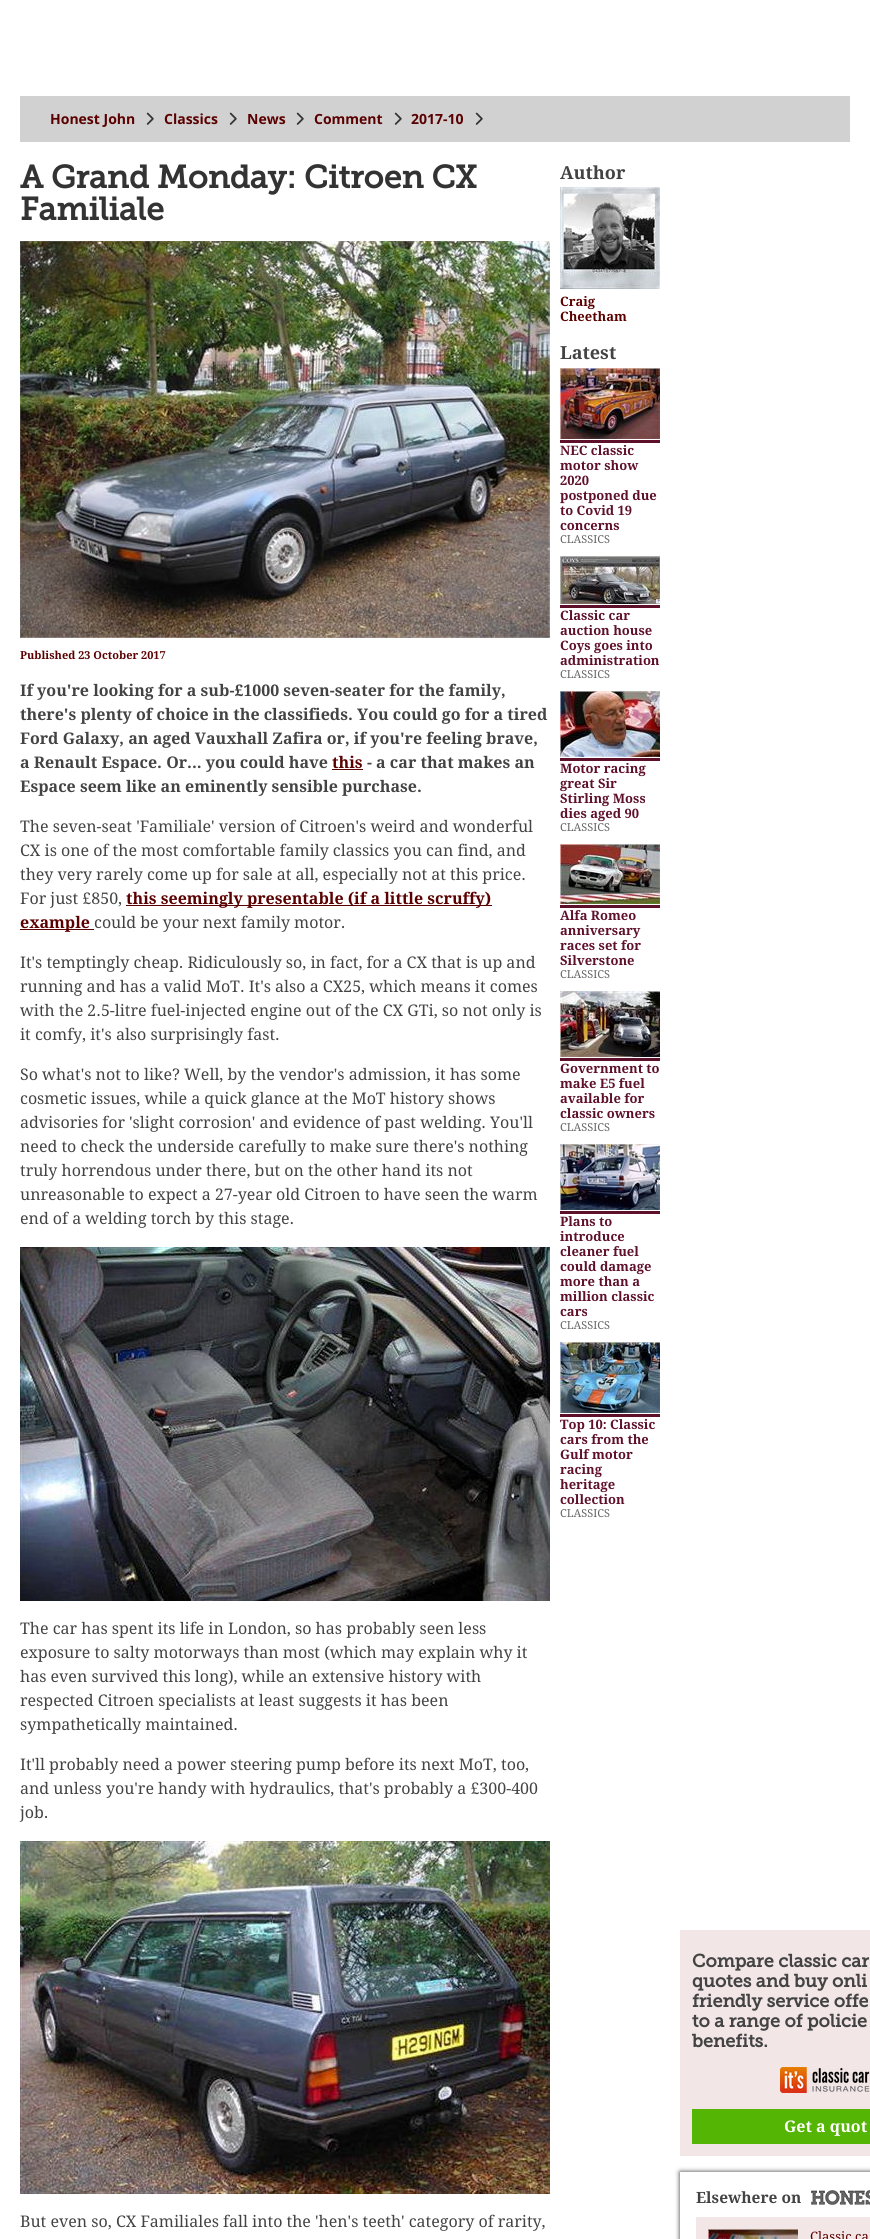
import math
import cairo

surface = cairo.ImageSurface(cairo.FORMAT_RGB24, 870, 2239)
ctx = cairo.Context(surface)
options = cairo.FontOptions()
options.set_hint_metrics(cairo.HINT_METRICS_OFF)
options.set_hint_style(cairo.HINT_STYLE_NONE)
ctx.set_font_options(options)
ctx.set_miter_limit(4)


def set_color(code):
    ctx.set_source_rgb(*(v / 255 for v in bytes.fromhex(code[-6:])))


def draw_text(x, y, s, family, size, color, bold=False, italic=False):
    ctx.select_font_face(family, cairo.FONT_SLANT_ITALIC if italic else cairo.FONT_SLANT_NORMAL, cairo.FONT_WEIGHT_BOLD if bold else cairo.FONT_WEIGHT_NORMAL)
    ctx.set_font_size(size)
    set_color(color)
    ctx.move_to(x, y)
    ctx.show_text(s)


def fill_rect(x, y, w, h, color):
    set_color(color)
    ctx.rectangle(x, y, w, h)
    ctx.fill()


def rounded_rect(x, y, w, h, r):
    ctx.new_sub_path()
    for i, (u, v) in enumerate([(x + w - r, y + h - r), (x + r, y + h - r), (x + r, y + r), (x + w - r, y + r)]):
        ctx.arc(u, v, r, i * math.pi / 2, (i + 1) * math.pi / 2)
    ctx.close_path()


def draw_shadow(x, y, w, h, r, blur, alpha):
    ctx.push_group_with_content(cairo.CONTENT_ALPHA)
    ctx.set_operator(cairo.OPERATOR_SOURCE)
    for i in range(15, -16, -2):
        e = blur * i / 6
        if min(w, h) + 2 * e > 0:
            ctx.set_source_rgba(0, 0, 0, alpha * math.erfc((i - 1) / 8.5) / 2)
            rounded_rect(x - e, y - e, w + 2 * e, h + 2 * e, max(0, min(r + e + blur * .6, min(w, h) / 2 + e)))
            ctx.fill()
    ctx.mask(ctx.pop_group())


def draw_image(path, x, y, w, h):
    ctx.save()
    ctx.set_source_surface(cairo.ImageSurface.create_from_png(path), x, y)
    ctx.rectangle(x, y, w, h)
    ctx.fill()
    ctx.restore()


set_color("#ffffff")
ctx.paint()
fill_rect(20, 96, 830, 46, "#d1d1d1")
draw_text(50, 124, "Honest John", "Open Sans", 14, "#5b0000", bold=True)
draw_image("assets/img1.png", 146, 112, 8, 13)
draw_text(164, 124, "Classics", "Open Sans", 14, "#5b0000", bold=True)
draw_image("assets/img1.png", 229, 112, 8, 13)
draw_text(247, 124, "News", "Open Sans", 14, "#5b0000", bold=True)
draw_image("assets/img1.png", 296, 112, 8, 13)
draw_text(314, 124, "Comment", "Open Sans", 14, "#5b0000", bold=True)
draw_image("assets/img1.png", 394, 112, 8, 13)
draw_text(411, 124, "2017-10", "Open Sans", 14, "#5b0000", bold=True)
draw_image("assets/img1.png", 475, 112, 8, 13)
draw_text(20, 188, "A Grand Monday: Citroen CX", "Museo Slab", 32, "#333333", bold=True)
draw_text(20, 220, "Familiale", "Museo Slab", 32, "#333333", bold=True)
draw_image("assets/img2.png", 20, 241, 530, 397)
draw_text(20, 659, "Published 23 October 2017", "Droid Serif", 11, "#5b0000", bold=True)
draw_text(20, 696, "If you're looking for a sub-£1000 seven-seater for the family,", "Droid Serif", 16, "#434343", bold=True)
draw_text(20, 720, "there's plenty of choice in the classifieds. You could go for a tired", "Droid Serif", 16, "#434343", bold=True)
draw_text(20, 744, "Ford Galaxy, an aged Vauxhall Zafira or, if you're feeling brave,", "Droid Serif", 16, "#434343", bold=True)
draw_text(20, 768, "a Renault Espace. Or... you could have", "Droid Serif", 16, "#434343", bold=True)
draw_text(332, 768, "this", "Droid Serif", 16, "#5b0000", bold=True)
fill_rect(332, 769, 31, 1, "#5b0000")
draw_text(367, 768, "- a car that makes an", "Droid Serif", 16, "#434343", bold=True)
draw_text(20, 792, "Espace seem like an eminently sensible purchase.", "Droid Serif", 16, "#434343", bold=True)
draw_text(20, 832, "The seven-seat 'Familiale' version of Citroen's weird and wonderful", "Droid Serif", 16, "#434343")
draw_text(20, 856, "CX is one of the most comfortable family classics you can find, and", "Droid Serif", 16, "#434343")
draw_text(20, 880, "they very rarely come up for sale at all, especially not at this price.", "Droid Serif", 16, "#434343")
draw_text(20, 904, "For just £850,", "Droid Serif", 16, "#434343")
fill_rect(126, 905, 366, 1, "#5b0000")
draw_text(126, 904, "this seemingly presentable (if a little scruffy)", "Droid Serif", 16, "#5b0000", bold=True)
fill_rect(20, 929, 74, 1, "#5b0000")
draw_text(20, 928, "example", "Droid Serif", 16, "#5b0000", bold=True)
draw_text(94, 928, "could be your next family motor.", "Droid Serif", 16, "#434343")
draw_text(20, 968, "It's temptingly cheap. Ridiculously so, in fact, for a CX that is up and", "Droid Serif", 16, "#434343")
draw_text(20, 992, "running and has a valid MoT. It's also a CX25, which means it comes", "Droid Serif", 16, "#434343")
draw_text(20, 1016, "with the 2.5-litre fuel-injected engine out of the CX GTi, so not only is", "Droid Serif", 16, "#434343")
draw_text(20, 1040, "it comfy, it's also surprisingly fast.", "Droid Serif", 16, "#434343")
draw_text(20, 1080, "So what's not to like? Well, by the vendor's admission, it has some", "Droid Serif", 16, "#434343")
draw_text(20, 1104, "cosmetic issues, while a quick glance at the MoT history shows", "Droid Serif", 16, "#434343")
draw_text(20, 1128, "advisories for 'slight corrosion' and evidence of past welding. You'll", "Droid Serif", 16, "#434343")
draw_text(20, 1152, "need to check the underside carefully to make sure there's nothing", "Droid Serif", 16, "#434343")
draw_text(20, 1176, "truly horrendous under there, but on the other hand its not", "Droid Serif", 16, "#434343")
draw_text(20, 1200, "unreasonable to expect a 27-year old Citroen to have seen the warm", "Droid Serif", 16, "#434343")
draw_text(20, 1224, "end of a welding torch by this stage.", "Droid Serif", 16, "#434343")
draw_image("assets/img3.png", 20, 1247, 530, 354)
draw_text(20, 1634, "The car has spent its life in London, so has probably seen less", "Droid Serif", 16, "#434343")
draw_text(20, 1658, "exposure to salty motorways than most (which may explain why it", "Droid Serif", 16, "#434343")
draw_text(20, 1682, "has even survived this long), while an extensive history with", "Droid Serif", 16, "#434343")
draw_text(20, 1706, "respected Citroen specialists at least suggests it has been", "Droid Serif", 16, "#434343")
draw_text(20, 1730, "sympathetically maintained.", "Droid Serif", 16, "#434343")
draw_text(20, 1770, "It'll probably need a power steering pump before its next MoT, too,", "Droid Serif", 16, "#434343")
draw_text(20, 1794, "and unless you're handy with hydraulics, that's probably a £300-400", "Droid Serif", 16, "#434343")
draw_text(20, 1818, "job.", "Droid Serif", 16, "#434343")
draw_image("assets/img4.png", 20, 1841, 530, 353)
draw_text(20, 2227, "But even so, CX Familiales fall into the 'hen's teeth' category of rarity,", "Droid Serif", 16, "#434343")
draw_text(560, 179, "Author", "Droid Serif", 18, "#434343", bold=True)
draw_image("assets/img5.png", 560, 187, 100, 102)
draw_text(560, 306, "Craig", "Droid Serif", 13, "#5b0000", bold=True)
draw_text(560, 321, "Cheetham", "Droid Serif", 13, "#5b0000", bold=True)
draw_text(560, 359, "Latest", "Droid Serif", 18, "#434343", bold=True)
draw_image("assets/img6.png", 560, 368, 100, 71)
draw_text(560, 455, "NEC classic", "Droid Serif", 13, "#5e102a", bold=True)
fill_rect(560, 440, 100, 3, "#5e102a")
draw_text(560, 470, "motor show", "Droid Serif", 13, "#5e102a", bold=True)
draw_text(560, 485, "2020", "Droid Serif", 13, "#5e102a", bold=True)
draw_text(560, 500, "postponed due", "Droid Serif", 13, "#5e102a", bold=True)
draw_text(560, 515, "to Covid 19", "Droid Serif", 13, "#5e102a", bold=True)
draw_text(560, 530, "concerns", "Droid Serif", 13, "#5e102a", bold=True)
draw_text(560, 543, "CLASSICS", "Droid Serif", 11, "#666666")
draw_image("assets/img7.png", 560, 556, 100, 48)
draw_text(560, 620, "Classic car", "Droid Serif", 13, "#5e102a", bold=True)
fill_rect(560, 605, 100, 3, "#5e102a")
draw_text(560, 635, "auction house", "Droid Serif", 13, "#5e102a", bold=True)
draw_text(560, 650, "Coys goes into", "Droid Serif", 13, "#5e102a", bold=True)
draw_text(560, 665, "administration", "Droid Serif", 13, "#5e102a", bold=True)
draw_text(560, 678, "CLASSICS", "Droid Serif", 11, "#666666")
draw_image("assets/img8.png", 560, 691, 100, 66)
draw_text(560, 773, "Motor racing", "Droid Serif", 13, "#5e102a", bold=True)
fill_rect(560, 758, 100, 3, "#5e102a")
draw_text(560, 788, "great Sir", "Droid Serif", 13, "#5e102a", bold=True)
draw_text(560, 803, "Stirling Moss", "Droid Serif", 13, "#5e102a", bold=True)
draw_text(560, 818, "dies aged 90", "Droid Serif", 13, "#5e102a", bold=True)
draw_text(560, 831, "CLASSICS", "Droid Serif", 11, "#666666")
draw_image("assets/img9.png", 560, 844, 100, 60)
draw_text(560, 920, "Alfa Romeo", "Droid Serif", 13, "#5e102a", bold=True)
fill_rect(560, 905, 100, 3, "#5e102a")
draw_text(560, 935, "anniversary", "Droid Serif", 13, "#5e102a", bold=True)
draw_text(560, 950, "races set for", "Droid Serif", 13, "#5e102a", bold=True)
draw_text(560, 965, "Silverstone", "Droid Serif", 13, "#5e102a", bold=True)
draw_text(560, 978, "CLASSICS", "Droid Serif", 11, "#666666")
draw_image("assets/img10.png", 560, 991, 100, 66)
draw_text(560, 1073, "Government to", "Droid Serif", 13, "#5e102a", bold=True)
fill_rect(560, 1058, 100, 3, "#5e102a")
draw_text(560, 1088, "make E5 fuel", "Droid Serif", 13, "#5e102a", bold=True)
draw_text(560, 1103, "available for", "Droid Serif", 13, "#5e102a", bold=True)
draw_text(560, 1118, "classic owners", "Droid Serif", 13, "#5e102a", bold=True)
draw_text(560, 1131, "CLASSICS", "Droid Serif", 11, "#666666")
draw_image("assets/img11.png", 560, 1144, 100, 66)
draw_text(560, 1226, "Plans to", "Droid Serif", 13, "#5e102a", bold=True)
fill_rect(560, 1211, 100, 3, "#5e102a")
draw_text(560, 1241, "introduce", "Droid Serif", 13, "#5e102a", bold=True)
draw_text(560, 1256, "cleaner fuel", "Droid Serif", 13, "#5e102a", bold=True)
draw_text(560, 1271, "could damage", "Droid Serif", 13, "#5e102a", bold=True)
draw_text(560, 1286, "more than a", "Droid Serif", 13, "#5e102a", bold=True)
draw_text(560, 1301, "million classic", "Droid Serif", 13, "#5e102a", bold=True)
draw_text(560, 1316, "cars", "Droid Serif", 13, "#5e102a", bold=True)
draw_text(560, 1329, "CLASSICS", "Droid Serif", 11, "#666666")
draw_image("assets/img12.png", 560, 1342, 100, 71)
draw_text(560, 1429, "Top 10: Classic", "Droid Serif", 13, "#5e102a", bold=True)
fill_rect(560, 1414, 100, 3, "#5e102a")
draw_text(560, 1444, "cars from the", "Droid Serif", 13, "#5e102a", bold=True)
draw_text(560, 1459, "Gulf motor", "Droid Serif", 13, "#5e102a", bold=True)
draw_text(560, 1474, "racing", "Droid Serif", 13, "#5e102a", bold=True)
draw_text(560, 1489, "heritage", "Droid Serif", 13, "#5e102a", bold=True)
draw_text(560, 1504, "collection", "Droid Serif", 13, "#5e102a", bold=True)
draw_text(560, 1517, "CLASSICS", "Droid Serif", 11, "#666666")
fill_rect(680, 1930, 190, 226, "#f2e6e6")
draw_text(692, 1967, "Compare classic car", "Museo Slab", 18, "#434343", bold=True)
draw_text(692, 1987, "quotes and buy onli", "Museo Slab", 18, "#434343", bold=True)
draw_text(692, 2007, "friendly service offe", "Museo Slab", 18, "#434343", bold=True)
draw_text(692, 2027, "to a range of policie", "Museo Slab", 18, "#434343", bold=True)
draw_text(692, 2047, "benefits.", "Museo Slab", 18, "#434343", bold=True)
draw_image("assets/img13.png", 780, 2067, 90, 26)
fill_rect(692, 2109, 178, 35, "#54b504")
draw_text(784, 2132, "Get a quot", "Droid Serif", 16, "#ffffff", bold=True)
ctx.save()
ctx.set_fill_rule(cairo.FILL_RULE_EVEN_ODD)
ctx.new_path()
ctx.move_to(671, 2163)
ctx.line_to(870, 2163)
ctx.line_to(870, 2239)
ctx.line_to(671, 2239)
ctx.close_path()
ctx.move_to(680, 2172)
ctx.line_to(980, 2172)
ctx.line_to(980, 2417)
ctx.line_to(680, 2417)
ctx.close_path()
ctx.clip()
set_color("#333333")
draw_shadow(680, 2172, 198, 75, 0, 2.5, 1)
ctx.restore()
draw_text(696, 2203, "Elsewhere on", "Droid Serif", 15.5, "#434343", bold=True)
draw_image("assets/img14.png", 811, 2190, 59, 15)
fill_rect(696, 2217, 174, 22, "#f2e6e6")
draw_image("assets/img15.png", 708, 2229, 90, 10)
draw_text(810, 2241, "Classic ca", "Droid Serif", 13, "#5b0000")
surface.write_to_png("output.png")
